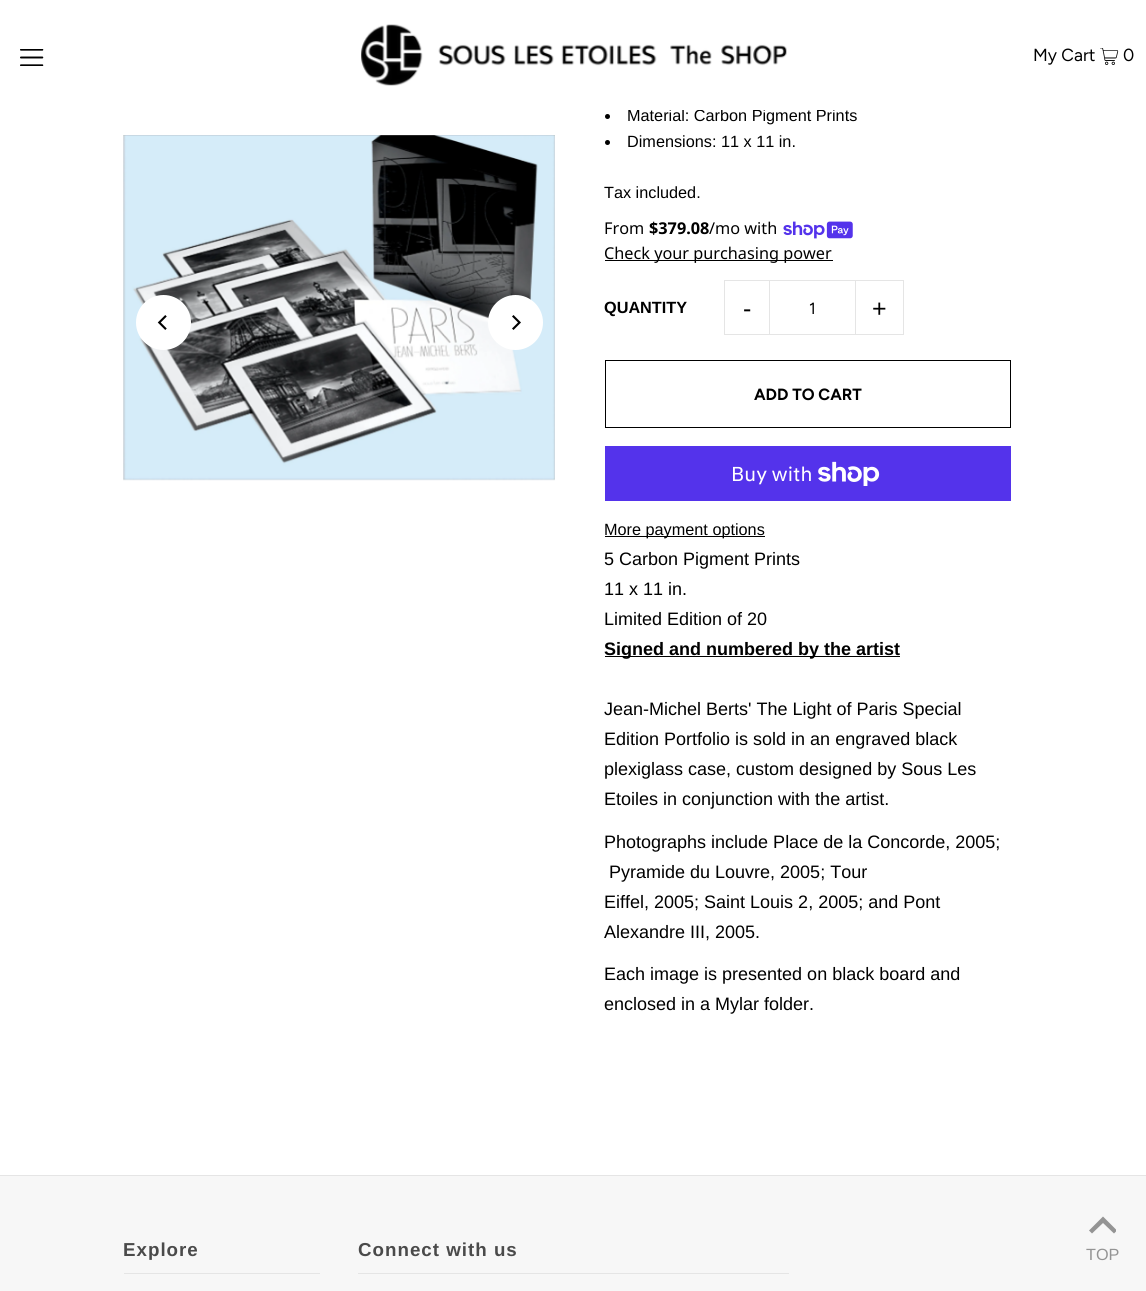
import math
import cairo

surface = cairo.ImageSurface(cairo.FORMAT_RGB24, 1146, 1291)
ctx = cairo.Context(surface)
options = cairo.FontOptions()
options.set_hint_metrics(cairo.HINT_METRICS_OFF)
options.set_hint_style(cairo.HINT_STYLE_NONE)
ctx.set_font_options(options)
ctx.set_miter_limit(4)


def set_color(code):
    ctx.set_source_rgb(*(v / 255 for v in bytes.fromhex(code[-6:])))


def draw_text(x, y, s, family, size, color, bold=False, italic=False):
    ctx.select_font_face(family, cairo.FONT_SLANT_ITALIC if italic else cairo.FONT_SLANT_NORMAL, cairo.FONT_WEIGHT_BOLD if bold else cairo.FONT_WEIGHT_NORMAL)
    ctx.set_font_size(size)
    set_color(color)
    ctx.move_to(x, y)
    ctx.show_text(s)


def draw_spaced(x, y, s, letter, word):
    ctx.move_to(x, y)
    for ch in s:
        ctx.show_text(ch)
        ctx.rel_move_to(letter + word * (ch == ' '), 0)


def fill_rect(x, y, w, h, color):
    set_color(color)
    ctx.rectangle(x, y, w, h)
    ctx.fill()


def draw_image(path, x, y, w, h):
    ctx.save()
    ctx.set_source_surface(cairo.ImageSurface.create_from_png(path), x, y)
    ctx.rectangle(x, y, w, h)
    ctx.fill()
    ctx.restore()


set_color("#ffffff")
ctx.paint()
draw_text(627, 121, "Material: Carbon Pigment Prints", "Liberation Sans", 16.25, "#000000")
fill_rect(628, 109, 207, 1, "#ffffff")
draw_image("assets/img1.png", 20, 49, 24, 17)
draw_image("assets/img2.png", 361, 24, 426, 62)
draw_text(1033, 61, "My Cart", "Figtree", 17.5, "#000000")
draw_image("assets/img3.png", 1100, 48, 19, 17)
draw_text(1123, 61, "0", "Figtree", 17.5, "#000000")
draw_image("assets/img4.png", 123, 135, 432, 346)
set_color("#ffffff")
ctx.arc(163.5, 322.5, 27.5, 0, 2 * math.pi)
ctx.fill()
draw_image("assets/img5.png", 157, 315, 10, 15)
ctx.arc(515.5, 322.5, 27.5, 0, 2 * math.pi)
ctx.fill()
draw_image("assets/img6.png", 512, 315, 9, 15)
set_color("#000000")
ctx.arc(607.5, 116.5, 2.5, 0, 2 * math.pi)
ctx.fill()
ctx.arc(607.5, 142.5, 2.5, 0, 2 * math.pi)
ctx.fill()
draw_text(627, 147, "Dimensions: 11 x 11 in.", "Liberation Sans", 16.25, "#000000")
draw_text(604, 198, "Tax included.", "Liberation Sans", 16.25, "#000000")
draw_text(604, 234, "From", "Noto Sans", 16.25, "#000000")
draw_text(649, 234, "$379.08", "Noto Sans", 16.25, "#000000", bold=True)
draw_text(709, 234, "/mo with", "Noto Sans", 16.25, "#000000")
draw_image("assets/img7.png", 783, 221, 70, 18)
fill_rect(605, 260, 228, 1, "#000000")
draw_text(604, 259, "Check your purchasing power", "Noto Sans", 16.25, "#000000")
draw_text(604, 313, "QUANTITY", "Liberation Sans", 16.25, "#000000", bold=True)
fill_rect(724, 280, 47, 1, "#e5e5e5")
fill_rect(724, 334, 47, 1, "#e5e5e5")
fill_rect(724, 280, 1, 55, "#e5e5e5")
draw_text(743, 317, "-", "Liberation Sans", 25, "#000000")
ctx.rectangle(769.5, 280.5, 86, 54)
set_color("#e5e5e5")
ctx.set_line_width(1)
ctx.stroke()
draw_text(809, 314, "1", "Figtree", 16.25, "#000000")
fill_rect(856, 280, 48, 1, "#e5e5e5")
fill_rect(903, 280, 1, 55, "#e5e5e5")
fill_rect(856, 334, 48, 1, "#e5e5e5")
draw_text(872, 317, "+", "Liberation Sans", 25, "#000000")
ctx.rectangle(605.5, 360.5, 405, 67)
ctx.stroke()
draw_text(754, 400, "ADD TO CART", "Figtree", 16.25, "#000000", bold=True)
fill_rect(605, 446, 406, 55, "#5433eb")
draw_text(731, 481, "Buy with", "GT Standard", 20, "#ffffff")
draw_image("assets/img8.png", 818, 461, 62, 25)
fill_rect(605, 536, 160, 1, "#000000")
draw_text(604, 535, "More payment options", "Liberation Sans", 16.25, "#000000")
draw_text(604, 565, "5 Carbon Pigment Prints", "Liberation Sans", 18, "#000000")
draw_text(604, 595, "11 x 11 in.", "Liberation Sans", 18, "#000000")
draw_text(604, 625, "Limited Edition of 20", "Liberation Sans", 18, "#000000")
fill_rect(605, 656, 295, 1, "#000000")
draw_text(604, 655, "Signed and numbered by the artist", "Liberation Sans", 18, "#000000", bold=True)
draw_text(604, 715, "Jean-Michel Berts' The Light of Paris Special", "Liberation Sans", 18, "#000000")
draw_text(604, 745, "Edition Portfolio is sold in an engraved black", "Liberation Sans", 18, "#000000")
draw_text(604, 775, "plexiglass case, custom designed by Sous Les", "Liberation Sans", 18, "#000000")
draw_text(604, 805, "Etoiles in conjunction with the artist.", "Liberation Sans", 18, "#000000")
draw_text(604, 848, "Photographs include Place de la Concorde, 2005;", "Liberation Sans", 18, "#000000")
draw_text(609, 878, "Pyramide du Louvre, 2005; Tour", "Liberation Sans", 18, "#000000")
draw_text(604, 908, "Eiffel, 2005; Saint Louis 2, 2005; and Pont", "Liberation Sans", 18, "#000000")
draw_text(604, 938, "Alexandre III, 2005.", "Liberation Sans", 18, "#000000")
draw_text(604, 980, "Each image is presented on black board and", "Liberation Sans", 18, "#000000")
draw_text(604, 1010, "enclosed in a Mylar folder.", "Liberation Sans", 18, "#000000")
fill_rect(0, 1176, 1146, 115, "#f7f7f7")
fill_rect(0, 1175, 1146, 1, "#e5e5e5")
fill_rect(124, 1273, 196, 1, "#e5e5e5")
ctx.select_font_face("Liberation Sans", cairo.FONT_SLANT_NORMAL, cairo.FONT_WEIGHT_BOLD)
ctx.set_font_size(18.75)
set_color("#4a4a4a")
draw_spaced(123, 1256, "Explore", 1, 0)
fill_rect(358, 1273, 431, 1, "#e5e5e5")
set_color("#4a4a4a")
draw_spaced(358, 1256, "Connect with us", 1, 0)
ctx.save()
ctx.rectangle(1089, 1216, 27, 18)
ctx.clip()
set_color("#949494")
ctx.new_path()
ctx.move_to(1103, 1216.5)
ctx.line_to(1089, 1230.5)
ctx.line_to(1092, 1233.5)
ctx.line_to(1103, 1223)
ctx.line_to(1114, 1233.5)
ctx.line_to(1117, 1230.5)
ctx.close_path()
ctx.fill()
ctx.restore()
draw_text(1086, 1260, "TOP", "Liberation Sans", 16.25, "#949494")
surface.write_to_png("output.png")
